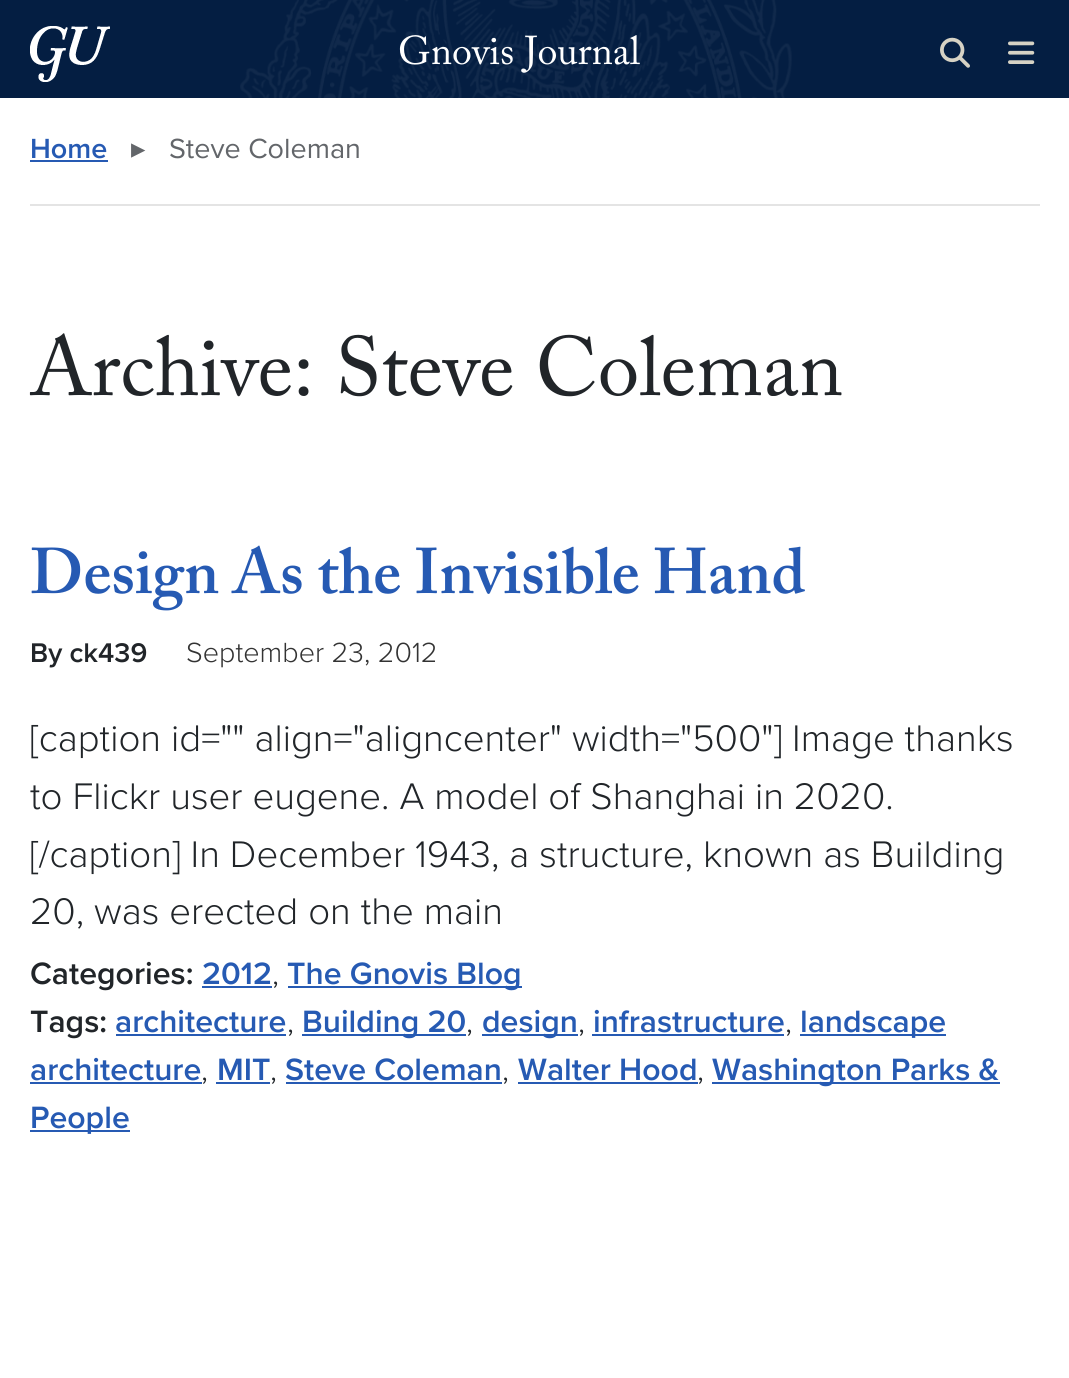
import math
import cairo

surface = cairo.ImageSurface(cairo.FORMAT_RGB24, 1069, 1378)
ctx = cairo.Context(surface)
options = cairo.FontOptions()
options.set_hint_metrics(cairo.HINT_METRICS_OFF)
options.set_hint_style(cairo.HINT_STYLE_NONE)
ctx.set_font_options(options)
ctx.set_miter_limit(4)


def set_color(code):
    ctx.set_source_rgb(*(v / 255 for v in bytes.fromhex(code[-6:])))


def draw_text(x, y, s, family, size, color, bold=False, italic=False):
    ctx.select_font_face(family, cairo.FONT_SLANT_ITALIC if italic else cairo.FONT_SLANT_NORMAL, cairo.FONT_WEIGHT_BOLD if bold else cairo.FONT_WEIGHT_NORMAL)
    ctx.set_font_size(size)
    set_color(color)
    ctx.move_to(x, y)
    ctx.show_text(s)


def fill_rect(x, y, w, h, color):
    set_color(color)
    ctx.rectangle(x, y, w, h)
    ctx.fill()


def draw_image(path, x, y, w, h):
    ctx.save()
    ctx.set_source_surface(cairo.ImageSurface.create_from_png(path), x, y)
    ctx.rectangle(x, y, w, h)
    ctx.fill()
    ctx.restore()


set_color("#ffffff")
ctx.paint()
fill_rect(0, 0, 1069, 98, "#041e42")
draw_image("assets/img1.png", 240, 0, 552, 98)
draw_image("assets/img2.png", 30, 26, 80, 56)
draw_text(398, 64, "Gnovis Journal", "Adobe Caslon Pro", 40, "#ffffff")
draw_image("assets/img3.png", 940, 37, 30, 31)
draw_image("assets/img4.png", 1008, 41, 27, 23)
fill_rect(30, 204, 1010, 2, "#e4e4e4")
draw_text(30, 158, "Home", "Proxima Nova SemiBold", 28.75, "#265ab3")
fill_rect(30, 160, 78, 2, "#265ab3")
draw_text(131, 158, "▸", "DejaVu Sans", 28.75, "#63666a")
draw_text(169, 158, "Steve Coleman", "Proxima Nova", 28.75, "#63666a")
draw_text(30, 395, "Archive: Steve Coleman", "Adobe Caslon Pro", 83.25, "#212529")
draw_text(30, 593, "Design As the Invisible Hand", "Adobe Caslon Pro SemiBold", 64, "#265ab3")
draw_text(30, 662, "By ck439", "Proxima Nova SemiBold", 28, "#212529")
draw_text(186, 662, "September 23, 2012", "Proxima Nova Light", 28.75, "#333333")
draw_text(30, 751, "[caption id=\"\" align=\"aligncenter\" width=\"500\"] Image thanks", "Proxima Nova Light", 38.4, "#212529")
draw_text(30, 809, "to Flickr user eugene. A model of Shanghai in 2020.", "Proxima Nova Light", 38.4, "#212529")
draw_text(30, 867, "[/caption] In December 1943, a structure, known as Building", "Proxima Nova Light", 38.4, "#212529")
draw_text(30, 924, "20, was erected on the main", "Proxima Nova Light", 38.4, "#212529")
draw_text(30, 984, "Categories:", "Proxima Nova SemiBold", 32, "#212529")
draw_text(202, 984, "2012", "Proxima Nova SemiBold", 32, "#265ab3")
draw_text(272, 984, ",", "Proxima Nova Light", 32, "#212529")
fill_rect(202, 986, 70, 2, "#265ab3")
fill_rect(288, 986, 234, 2, "#265ab3")
draw_text(287, 984, "The Gnovis Blog", "Proxima Nova SemiBold", 32, "#265ab3")
draw_text(30, 1032, "Tags:", "Proxima Nova SemiBold", 32, "#212529")
draw_text(115, 1032, "architecture", "Proxima Nova SemiBold", 32, "#265ab3")
fill_rect(116, 1034, 170, 2, "#265ab3")
draw_text(287, 1032, ",", "Proxima Nova Light", 32, "#212529")
fill_rect(302, 1034, 164, 2, "#265ab3")
draw_text(302, 1032, "Building 20", "Proxima Nova SemiBold", 32, "#265ab3")
draw_text(466, 1032, ",", "Proxima Nova Light", 32, "#212529")
fill_rect(482, 1034, 96, 2, "#265ab3")
draw_text(482, 1032, "design", "Proxima Nova SemiBold", 32, "#265ab3")
draw_text(578, 1032, ",", "Proxima Nova Light", 32, "#212529")
draw_text(593, 1032, "infrastructure", "Proxima Nova SemiBold", 32, "#265ab3")
fill_rect(592, 1034, 192, 2, "#265ab3")
draw_text(785, 1032, ",", "Proxima Nova Light", 32, "#212529")
fill_rect(800, 1034, 146, 2, "#265ab3")
draw_text(800, 1032, "landscape", "Proxima Nova SemiBold", 32, "#265ab3")
draw_text(30, 1080, "architecture", "Proxima Nova SemiBold", 32, "#265ab3")
fill_rect(30, 1082, 172, 2, "#265ab3")
draw_text(201, 1080, ",", "Proxima Nova Light", 32, "#212529")
draw_text(217, 1080, "MIT", "Proxima Nova SemiBold", 32, "#265ab3")
fill_rect(216, 1082, 54, 2, "#265ab3")
draw_text(270, 1080, ",", "Proxima Nova Light", 32, "#212529")
draw_text(285, 1080, "Steve Coleman", "Proxima Nova SemiBold", 32, "#265ab3")
fill_rect(286, 1082, 216, 2, "#265ab3")
draw_text(502, 1080, ",", "Proxima Nova Light", 32, "#212529")
draw_text(518, 1080, "Walter Hood", "Proxima Nova SemiBold", 32, "#265ab3")
fill_rect(518, 1082, 180, 2, "#265ab3")
draw_text(697, 1080, ",", "Proxima Nova Light", 32, "#212529")
fill_rect(712, 1082, 288, 2, "#265ab3")
draw_text(712, 1080, "Washington Parks &", "Proxima Nova SemiBold", 32, "#265ab3")
fill_rect(30, 1130, 100, 2, "#265ab3")
draw_text(30, 1128, "People", "Proxima Nova SemiBold", 32, "#265ab3")
surface.write_to_png("output.png")
